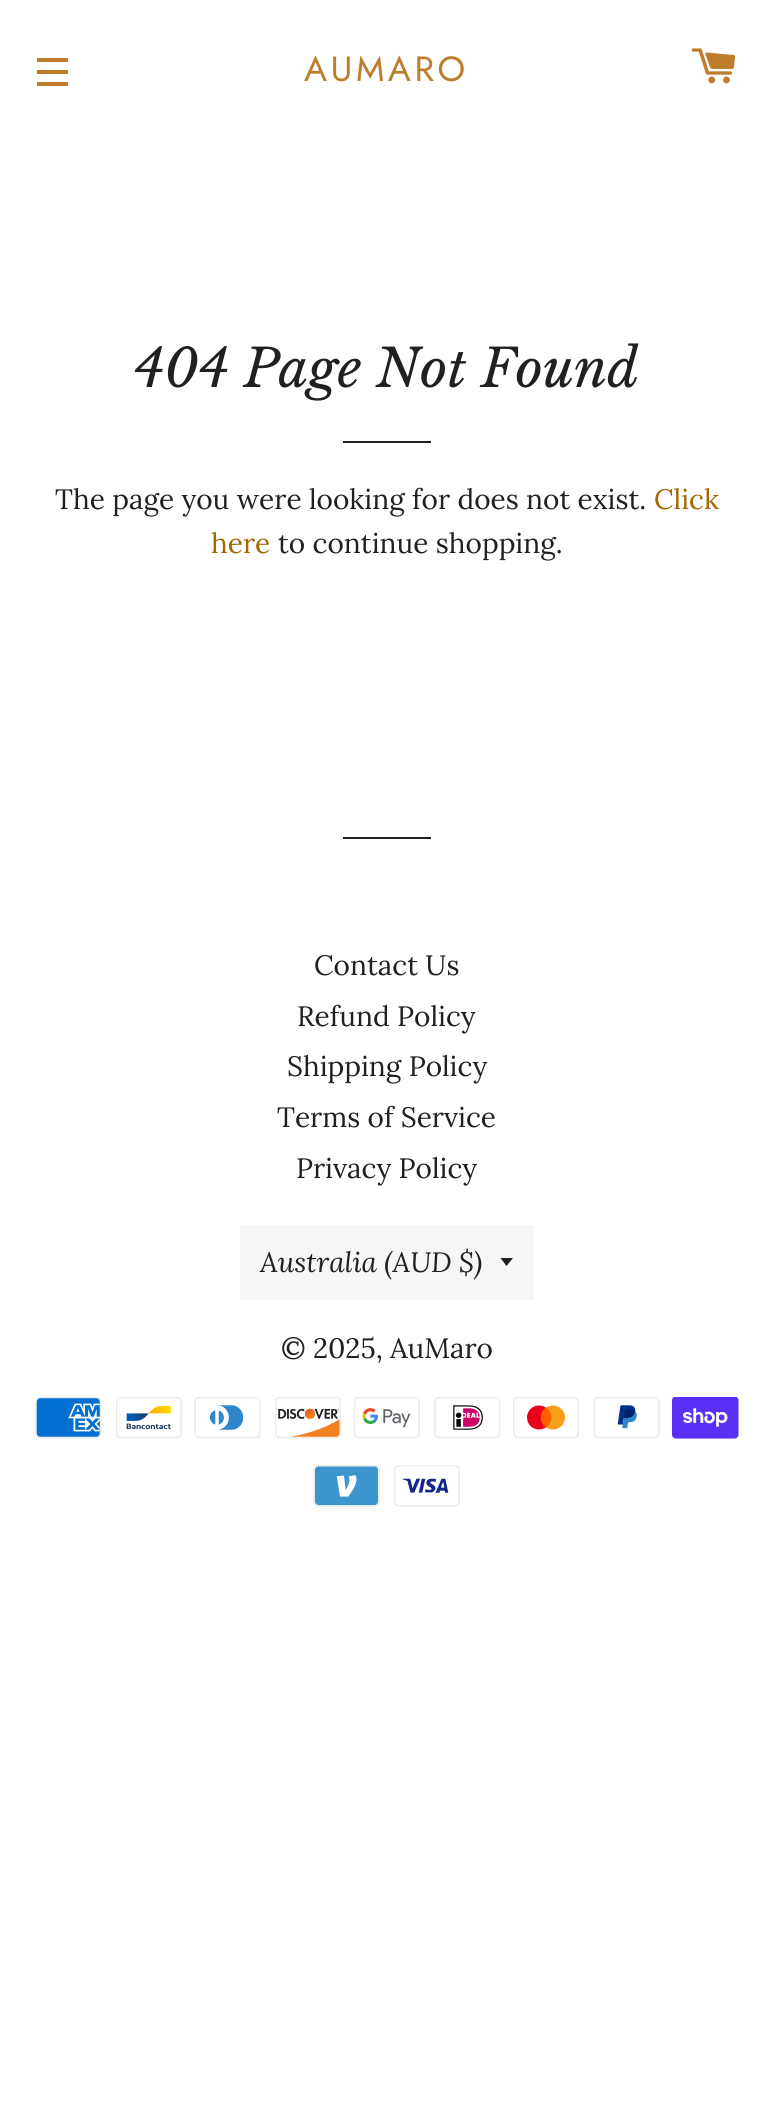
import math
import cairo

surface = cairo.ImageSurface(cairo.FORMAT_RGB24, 773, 2113)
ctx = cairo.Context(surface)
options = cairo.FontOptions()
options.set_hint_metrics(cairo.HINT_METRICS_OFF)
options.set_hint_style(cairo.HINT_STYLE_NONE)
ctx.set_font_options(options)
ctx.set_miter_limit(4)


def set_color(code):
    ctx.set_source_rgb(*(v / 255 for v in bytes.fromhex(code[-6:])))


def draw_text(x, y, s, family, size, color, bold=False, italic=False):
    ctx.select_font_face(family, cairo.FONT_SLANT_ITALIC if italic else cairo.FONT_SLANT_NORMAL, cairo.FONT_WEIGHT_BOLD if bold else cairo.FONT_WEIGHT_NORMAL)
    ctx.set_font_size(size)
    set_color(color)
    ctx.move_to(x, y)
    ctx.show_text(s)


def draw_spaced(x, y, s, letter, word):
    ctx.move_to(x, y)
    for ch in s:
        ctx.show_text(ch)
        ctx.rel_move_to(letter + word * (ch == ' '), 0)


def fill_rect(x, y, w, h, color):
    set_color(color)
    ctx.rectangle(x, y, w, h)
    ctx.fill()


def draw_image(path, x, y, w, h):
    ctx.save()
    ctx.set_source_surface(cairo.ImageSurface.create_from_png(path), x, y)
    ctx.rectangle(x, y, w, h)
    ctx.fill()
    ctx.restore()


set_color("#ffffff")
ctx.paint()
fill_rect(37, 58, 31, 4, "#be7d2d")
fill_rect(37, 70, 31, 4, "#be7d2d")
fill_rect(37, 82, 31, 4, "#be7d2d")
ctx.select_font_face("Jost")
ctx.set_font_size(35)
draw_spaced(304, 81, "AUMARO", 3.5, 0)
draw_image("assets/img1.png", 691, 48, 45, 36)
draw_text(134, 387, "404 Page Not Found", "Libre Baskerville", 52.5, "#1f2021", italic=True)
fill_rect(343, 441, 88, 2, "#1f2021")
draw_text(55, 509, "The page you were looking for does not exist.", "Lora", 28, "#1f2021")
draw_text(654, 509, "Click", "Lora", 28, "#a56600")
draw_text(211, 553, "here", "Lora", 28, "#a56600")
draw_text(278, 553, "to continue shopping.", "Lora", 28, "#1f2021")
fill_rect(343, 837, 88, 2, "#1f2021")
draw_text(314, 975, "Contact Us", "Lora", 28, "#1f2021")
draw_text(297, 1026, "Refund Policy", "Lora", 28, "#1f2021")
draw_text(287, 1076, "Shipping Policy", "Lora", 28, "#1f2021")
draw_text(277, 1127, "Terms of Service", "Lora", 28, "#1f2021")
draw_text(296, 1178, "Privacy Policy", "Lora", 28, "#1f2021")
fill_rect(240, 1225, 294, 75, "#f6f6f6")
set_color("#1f2021")
ctx.new_path()
ctx.move_to(500.5, 1258)
ctx.line_to(506.5, 1266)
ctx.line_to(513, 1258)
ctx.close_path()
ctx.fill()
draw_text(260, 1272, "Australia (AUD $)", "Lora", 28, "#1f2021", italic=True)
draw_text(281, 1358, "© 2025, AuMaro", "Lora", 28, "#1f2021")
draw_image("assets/img2.png", 35, 1397, 67, 42)
draw_image("assets/img3.png", 116, 1397, 66, 42)
draw_image("assets/img4.png", 194, 1397, 67, 42)
draw_image("assets/img5.png", 275, 1397, 66, 42)
draw_image("assets/img6.png", 354, 1397, 66, 42)
draw_image("assets/img7.png", 434, 1397, 67, 42)
draw_image("assets/img8.png", 513, 1397, 66, 42)
draw_image("assets/img9.png", 593, 1397, 67, 42)
draw_image("assets/img10.png", 672, 1397, 67, 42)
draw_image("assets/img11.png", 313, 1465, 67, 42)
draw_image("assets/img12.png", 394, 1465, 66, 42)
surface.write_to_png("output.png")
